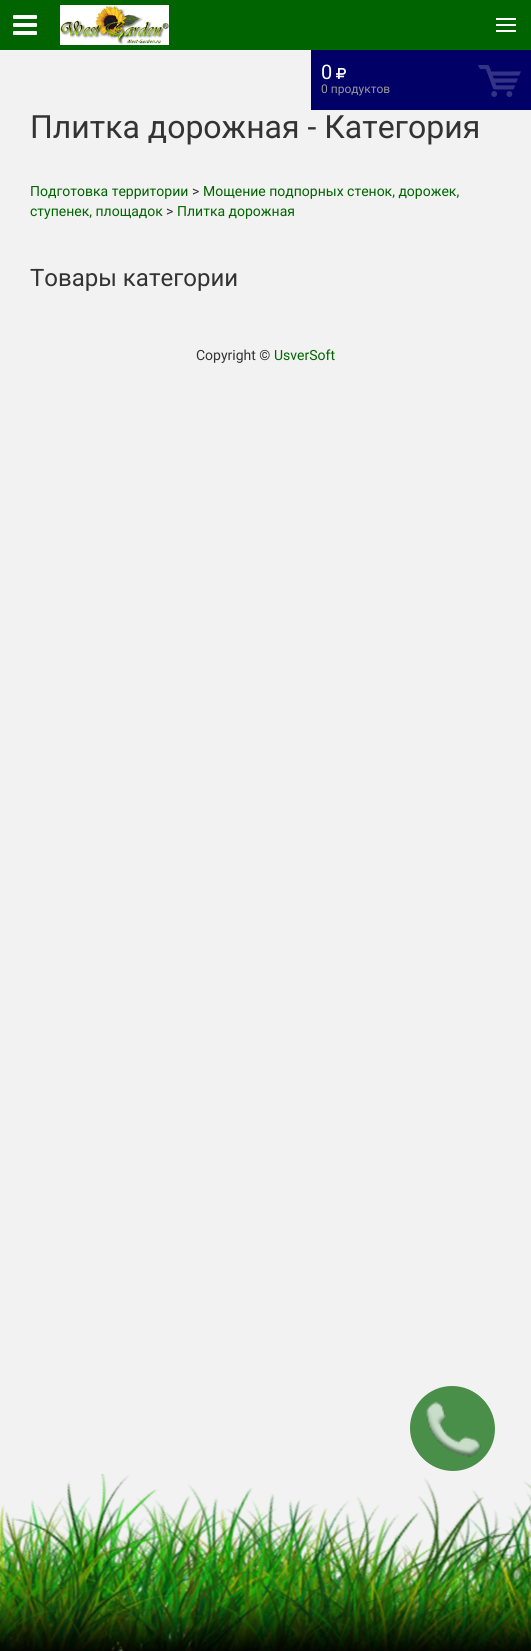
import math
import cairo

surface = cairo.ImageSurface(cairo.FORMAT_RGB24, 531, 1651)
ctx = cairo.Context(surface)
options = cairo.FontOptions()
options.set_hint_metrics(cairo.HINT_METRICS_OFF)
options.set_hint_style(cairo.HINT_STYLE_NONE)
ctx.set_font_options(options)
ctx.set_miter_limit(4)


def set_color(code):
    ctx.set_source_rgb(*(v / 255 for v in bytes.fromhex(code[-6:])))


def draw_text(x, y, s, family, size, color, bold=False, italic=False):
    ctx.select_font_face(family, cairo.FONT_SLANT_ITALIC if italic else cairo.FONT_SLANT_NORMAL, cairo.FONT_WEIGHT_BOLD if bold else cairo.FONT_WEIGHT_NORMAL)
    ctx.set_font_size(size)
    set_color(color)
    ctx.move_to(x, y)
    ctx.show_text(s)


def fill_rect(x, y, w, h, color):
    set_color(color)
    ctx.rectangle(x, y, w, h)
    ctx.fill()


def draw_image(path, x, y, w, h):
    ctx.save()
    ctx.set_source_surface(cairo.ImageSurface.create_from_png(path), x, y)
    ctx.rectangle(x, y, w, h)
    ctx.fill()
    ctx.restore()


set_color("#f2f2f2")
ctx.paint()
fill_rect(0, 0, 531, 50, "#006400")
draw_image("assets/img1.png", 13, 15, 24, 20)
fill_rect(60, 5, 109, 40, "#ffffff")
draw_image("assets/img2.png", 60, 5, 109, 40)
fill_rect(496, 24, 20, 2, "#ffffff")
fill_rect(496, 18, 20, 2, "#ffffff")
fill_rect(496, 30, 20, 2, "#ffffff")
fill_rect(311, 50, 220, 60, "#000066")
draw_text(321, 79, "0", "Roboto", 20, "#ffffff")
draw_image("assets/img3.png", 336, 68, 10, 11)
draw_text(321, 93, "0 продуктов", "Roboto", 12, "#999999")
draw_image("assets/img4.png", 478, 65, 43, 32)
draw_text(30, 138, "Плитка дорожная - Категория", "Roboto", 32, "#333333")
draw_text(30, 196, "Подготовка территории", "Roboto", 14, "#006400")
draw_text(192, 196, ">", "Roboto", 14, "#333333")
draw_text(203, 196, "Мощение подпорных стенок, дорожек,", "Roboto", 14, "#006400")
draw_text(30, 216, "ступенек, площадок", "Roboto", 14, "#006400")
draw_text(166, 216, ">", "Roboto", 14, "#333333")
draw_text(177, 216, "Плитка дорожная", "Roboto", 14, "#006400")
draw_text(30, 286, "Товары категории", "Roboto", 24, "#333333")
draw_text(196, 360, "Copyright ©", "Roboto", 14, "#333333")
draw_text(274, 360, "UsverSoft", "Roboto", 14, "#006400")
ctx.new_path()
ctx.arc(452, 1428, 39.5, 0, 2 * math.pi)
set_color("#498f49")
ctx.set_line_width(5)
ctx.stroke()
ctx.arc(453, 1429, 42, 0, 2 * math.pi)
ctx.fill()
draw_image("assets/img5.png", 426, 1401, 55, 57)
draw_image("assets/img6.png", 0, 1474, 531, 177)
surface.write_to_png("output.png")
